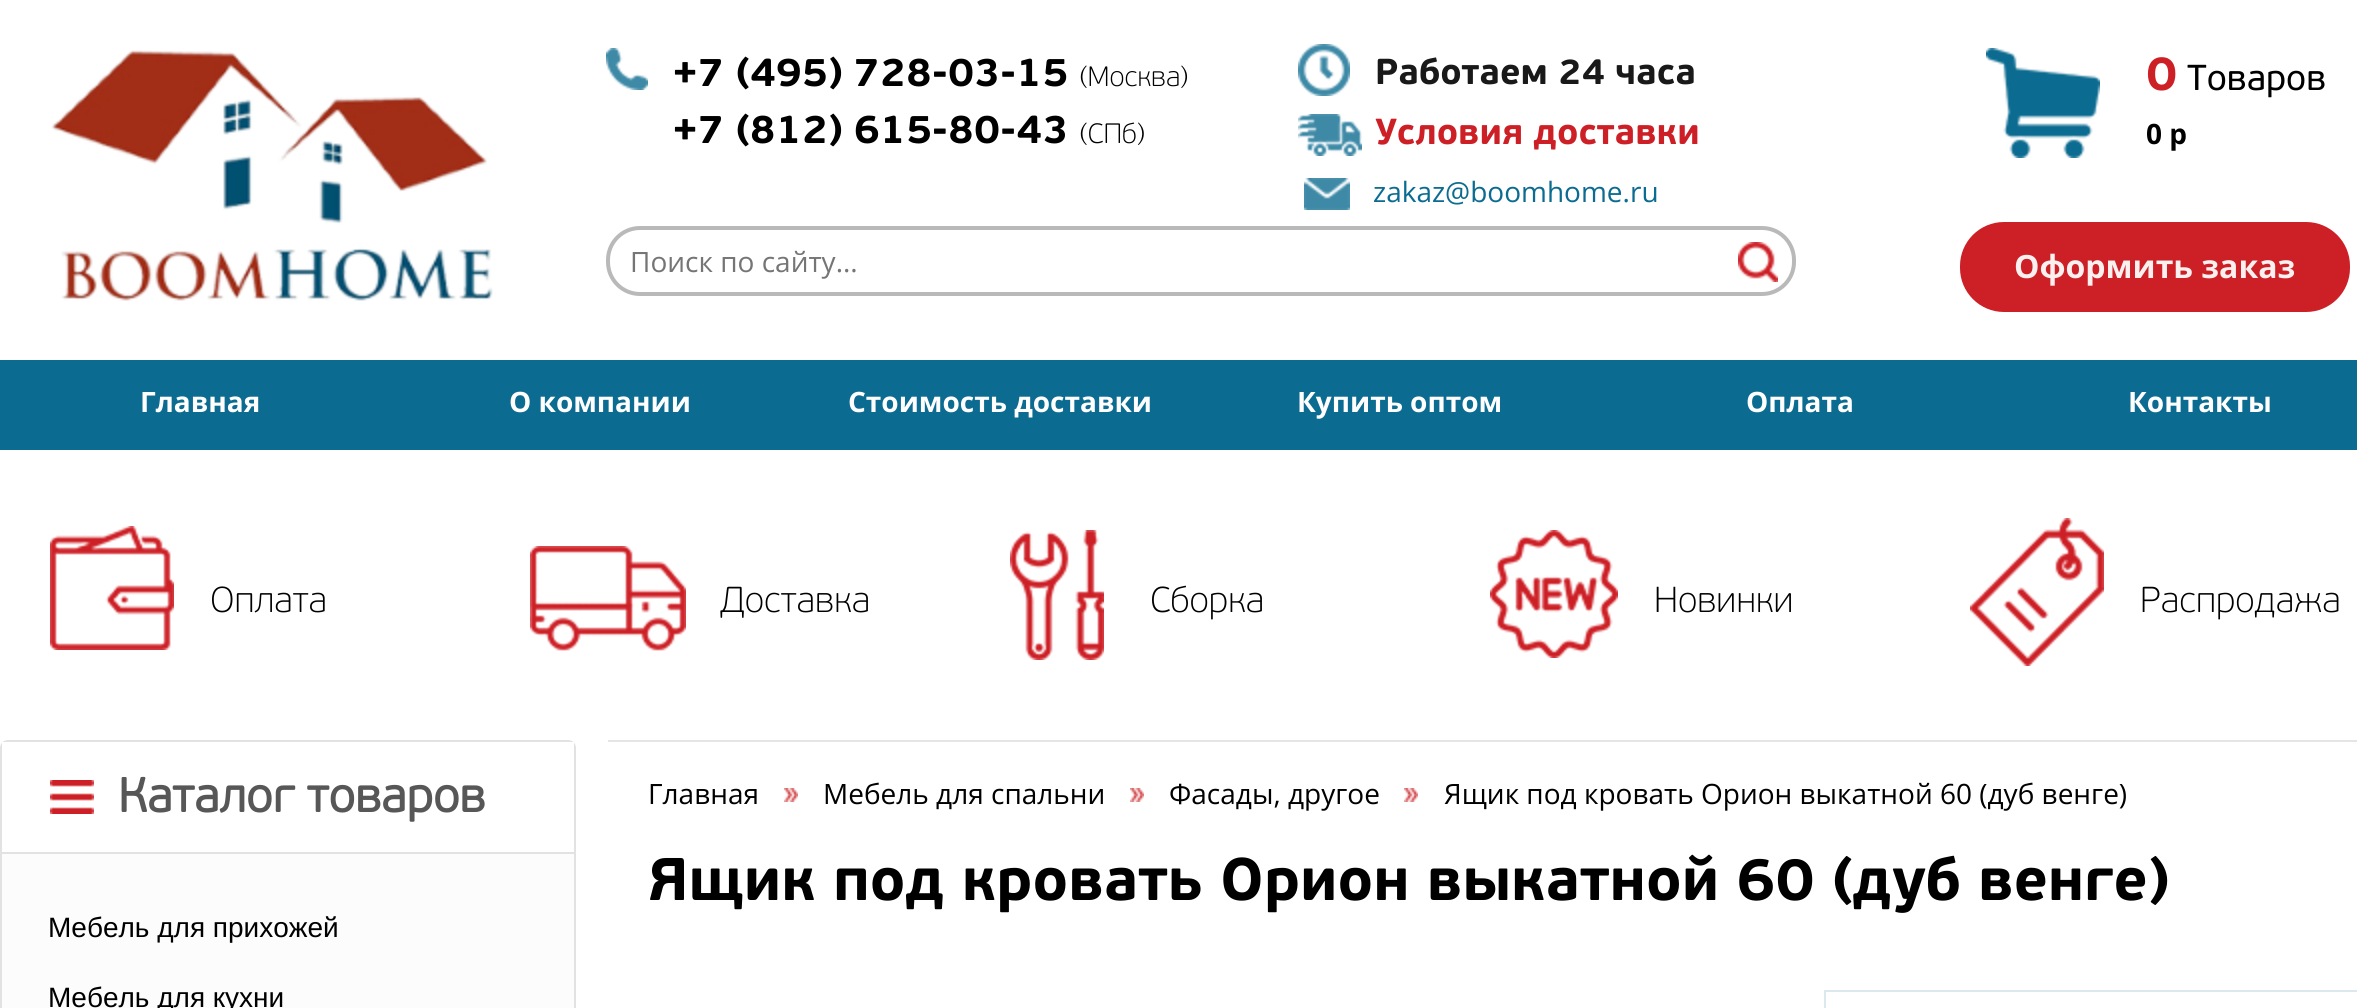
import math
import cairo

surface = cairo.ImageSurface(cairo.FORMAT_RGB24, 2357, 1008)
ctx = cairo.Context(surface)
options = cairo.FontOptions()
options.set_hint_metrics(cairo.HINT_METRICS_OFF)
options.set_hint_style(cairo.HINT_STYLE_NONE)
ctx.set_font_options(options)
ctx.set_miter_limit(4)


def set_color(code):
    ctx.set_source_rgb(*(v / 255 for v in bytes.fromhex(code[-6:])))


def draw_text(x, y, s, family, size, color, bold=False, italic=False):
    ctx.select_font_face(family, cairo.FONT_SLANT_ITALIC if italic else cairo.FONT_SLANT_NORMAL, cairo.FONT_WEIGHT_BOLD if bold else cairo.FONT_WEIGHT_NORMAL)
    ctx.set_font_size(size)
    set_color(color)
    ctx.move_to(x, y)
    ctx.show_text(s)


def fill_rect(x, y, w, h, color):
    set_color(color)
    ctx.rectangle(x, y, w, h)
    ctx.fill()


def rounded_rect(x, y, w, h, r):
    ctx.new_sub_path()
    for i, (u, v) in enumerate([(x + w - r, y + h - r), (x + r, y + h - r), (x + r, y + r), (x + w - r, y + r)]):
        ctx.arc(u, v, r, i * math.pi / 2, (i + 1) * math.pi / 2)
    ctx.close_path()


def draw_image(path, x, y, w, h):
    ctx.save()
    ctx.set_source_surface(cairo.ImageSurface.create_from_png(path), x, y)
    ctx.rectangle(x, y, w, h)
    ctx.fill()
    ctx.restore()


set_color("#ffffff")
ctx.paint()
draw_image("assets/img1.png", 51, 50, 442, 251)
draw_image("assets/img2.png", 606, 48, 42, 42)
draw_text(672, 86, "+7 (495) 728-03-15", "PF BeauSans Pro", 40, "#000000", bold=True)
draw_text(1080, 86, "(Москва)", "PF BeauSans Pro Thin", 28, "#000000")
draw_text(672, 143, "+7 (812) 615-80-43", "PF BeauSans Pro", 40, "#000000", bold=True)
draw_text(1080, 143, "(СПб)", "PF BeauSans Pro Thin", 28, "#000000")
draw_image("assets/img3.png", 1298, 44, 52, 52)
draw_text(1375, 84, "Работаем 24 часа", "PF BeauSans Pro", 36, "#191919", bold=True)
draw_image("assets/img4.png", 1298, 114, 64, 42)
draw_text(1375, 144, "Условия доставки", "PF BeauSans Pro", 36, "#cd2026", bold=True)
draw_image("assets/img5.png", 1304, 178, 46, 32)
draw_text(1373, 202, "zakaz@boomhome.ru", "Open Sans", 28, "#0c6b90")
rounded_rect(608, 228, 1186, 66, 32)
set_color("#b9b9b9")
ctx.set_line_width(4)
ctx.stroke()
draw_text(630, 272, "Поиск по сайту...", "Open Sans", 28, "#757575")
draw_image("assets/img6.png", 1738, 242, 40, 40)
draw_image("assets/img7.png", 1986, 48, 114, 110)
draw_text(2146, 90, "0", "PF BeauSans Pro", 48, "#cd2026", bold=True)
draw_text(2187, 90, "Товаров", "PF BeauSans Pro", 36, "#000000")
draw_text(2146, 144, "0 p", "Open Sans", 28, "#000000", bold=True)
set_color("#cd2026")
rounded_rect(1960, 222, 390, 90, 44)
ctx.fill()
draw_text(2014, 278, "Оформить заказ", "Open Sans", 32, "#faf0f0", bold=True)
fill_rect(0, 360, 2357, 90, "#0c6b90")
draw_text(140, 412, "Главная", "Open Sans", 28, "#ffffff", bold=True)
draw_text(509, 412, "О компании", "Open Sans", 28, "#ffffff", bold=True)
draw_text(848, 412, "Стоимость доставки", "Open Sans", 28, "#ffffff", bold=True)
draw_text(1297, 412, "Купить оптом", "Open Sans", 28, "#ffffff", bold=True)
draw_text(1746, 412, "Оплата", "Open Sans", 28, "#ffffff", bold=True)
draw_text(2128, 412, "Контакты", "Open Sans", 28, "#ffffff", bold=True)
draw_image("assets/img8.png", 50, 526, 124, 124)
draw_text(210, 612, "Оплата", "PF BeauSans Pro Thin", 36, "#000000")
draw_image("assets/img9.png", 530, 546, 156, 105)
draw_text(720, 612, "Доставка", "PF BeauSans Pro Thin", 36, "#000000")
draw_image("assets/img10.png", 1010, 530, 94, 130)
draw_text(1150, 612, "Сборка", "PF BeauSans Pro Thin", 36, "#000000")
draw_image("assets/img11.png", 1490, 530, 128, 128)
draw_text(1654, 612, "Новинки", "PF BeauSans Pro Thin", 36, "#000000")
draw_image("assets/img12.png", 1970, 518, 134, 148)
draw_text(2140, 612, "Распродажа", "PF BeauSans Pro Thin", 36, "#000000")
set_color("#fcfcfc")
rounded_rect(1, 741, 574, 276, 7)
ctx.fill_preserve()
set_color("#e2e2e2")
ctx.set_line_width(2)
ctx.stroke()
fill_rect(2, 742, 572, 110, "#ffffff")
draw_image("assets/img13.png", 50, 780, 44, 34)
fill_rect(2, 852, 572, 2, "#e2e2e2")
draw_text(118, 812, "Каталог товаров", "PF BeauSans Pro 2", 48, "#575757", bold=True)
draw_text(48, 937, "Мебель для прихожей", "Liberation Sans", 28, "#000000")
draw_text(48, 1007, "Мебель для кухни", "Liberation Sans", 28, "#000000")
fill_rect(608, 740, 1749, 2, "#e5e5e5")
draw_text(648, 804, "Главная", "Open Sans", 28, "#000000")
draw_image("assets/img14.png", 784, 788, 14, 14)
draw_text(823, 804, "Мебель для спальни", "Open Sans", 28, "#000000")
draw_image("assets/img14.png", 1130, 788, 14, 14)
draw_text(1169, 804, "Фасады, другое", "Open Sans", 28, "#000000")
draw_image("assets/img14.png", 1404, 788, 14, 14)
draw_text(1444, 804, "Ящик под кровать Орион выкатной 60 (дуб венге)", "Open Sans", 28, "#000000")
draw_text(648, 900, "Ящик под кровать Орион выкатной 60 (дуб венге)", "PF BeauSans Pro", 60, "#000000", bold=True)
ctx.rectangle(1825, 991, 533, 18)
set_color("#dbe9ee")
ctx.stroke()
surface.write_to_png("output.png")
